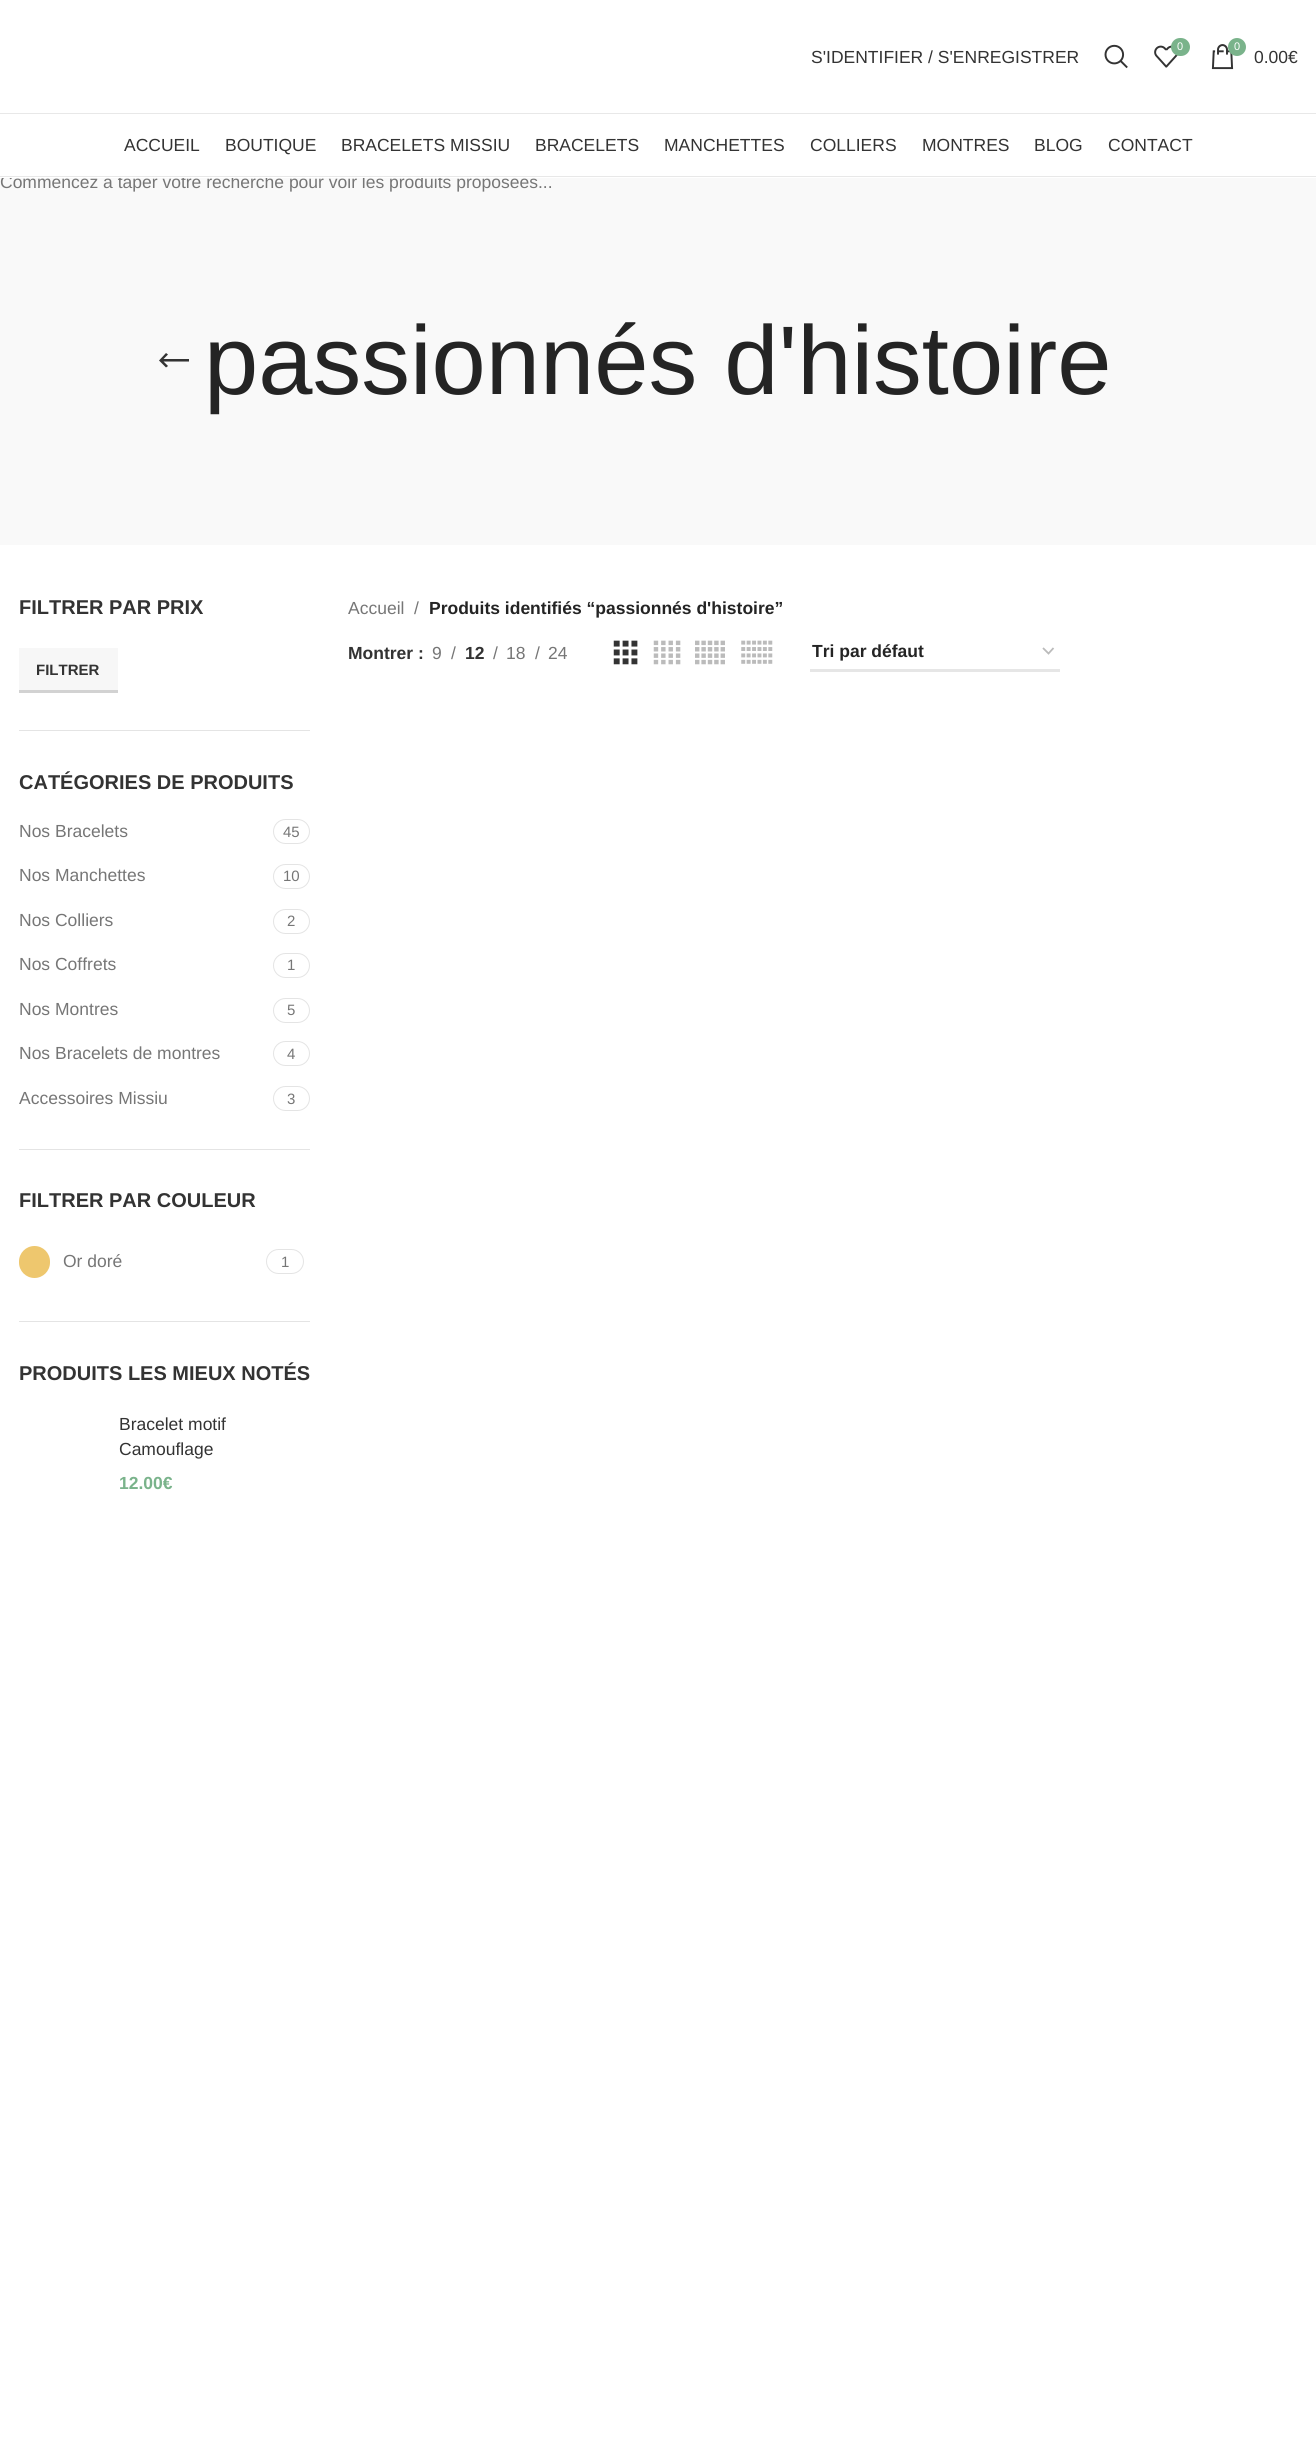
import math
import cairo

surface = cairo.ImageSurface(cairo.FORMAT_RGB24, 1316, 2452)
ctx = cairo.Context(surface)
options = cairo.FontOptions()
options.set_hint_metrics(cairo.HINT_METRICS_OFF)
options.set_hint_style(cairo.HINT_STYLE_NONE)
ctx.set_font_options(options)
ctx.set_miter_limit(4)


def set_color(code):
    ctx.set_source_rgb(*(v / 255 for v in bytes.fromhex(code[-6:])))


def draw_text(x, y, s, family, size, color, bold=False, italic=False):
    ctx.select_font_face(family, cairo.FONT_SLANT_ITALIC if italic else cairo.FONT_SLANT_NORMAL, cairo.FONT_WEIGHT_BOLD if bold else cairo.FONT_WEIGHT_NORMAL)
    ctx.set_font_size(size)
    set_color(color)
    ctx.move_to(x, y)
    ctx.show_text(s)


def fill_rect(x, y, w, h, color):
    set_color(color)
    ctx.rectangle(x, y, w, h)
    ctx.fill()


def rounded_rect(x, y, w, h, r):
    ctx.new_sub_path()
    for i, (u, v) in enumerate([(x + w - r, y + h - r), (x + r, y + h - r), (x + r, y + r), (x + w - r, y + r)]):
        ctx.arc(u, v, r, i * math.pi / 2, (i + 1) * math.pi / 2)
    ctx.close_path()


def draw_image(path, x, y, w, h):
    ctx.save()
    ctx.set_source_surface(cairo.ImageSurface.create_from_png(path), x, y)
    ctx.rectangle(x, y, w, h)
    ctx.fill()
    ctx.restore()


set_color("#ffffff")
ctx.paint()
fill_rect(0, 113, 1316, 1, "#e8e8e8")
draw_text(811, 63, "S'IDENTIFIER / S'ENREGISTRER", "Liberation Sans", 17.5, "#333333")
draw_image("assets/img1.png", 1104, 44, 24, 25)
draw_image("assets/img2.png", 1154, 45, 24, 23)
set_color("#7ab38b")
rounded_rect(1171, 38, 19, 18, 9)
ctx.fill()
draw_text(1177, 50, "0", "Liberation Sans", 11, "#ffffff")
draw_image("assets/img3.png", 1211, 44, 23, 26)
set_color("#7ab38b")
ctx.arc(1237, 47, 9, 0, 2 * math.pi)
ctx.fill()
draw_text(1234, 50, "0", "Liberation Sans", 11, "#ffffff")
draw_text(1254, 63, "0.00€", "Liberation Sans", 17.5, "#333333")
fill_rect(0, 178, 1316, 367, "#f9f9f9")
draw_text(0, 188, "Commencez à taper votre recherche pour voir les produits proposées...", "Liberation Sans", 17.5, "#767676")
fill_rect(2, 175, 516, 3, "#ffffff")
fill_rect(0, 176, 1316, 1, "#e8e8e8")
draw_text(124, 151, "ACCUEIL", "Liberation Sans", 17.5, "#333333")
draw_text(225, 151, "BOUTIQUE", "Liberation Sans", 17.5, "#333333")
draw_text(341, 151, "BRACELETS MISSIU", "Liberation Sans", 17.5, "#333333")
draw_text(535, 151, "BRACELETS", "Liberation Sans", 17.5, "#333333")
draw_text(664, 151, "MANCHETTES", "Liberation Sans", 17.5, "#333333")
draw_text(810, 151, "COLLIERS", "Liberation Sans", 17.5, "#333333")
draw_text(922, 151, "MONTRES", "Liberation Sans", 17.5, "#333333")
draw_text(1034, 151, "BLOG", "Liberation Sans", 17.5, "#333333")
draw_text(1108, 151, "CONTACT", "Liberation Sans", 17.5, "#333333")
ctx.new_path()
ctx.move_to(168, 366)
ctx.line_to(163.5, 361.5)
ctx.line_to(189, 361.5)
ctx.line_to(189, 359)
ctx.line_to(163.5, 359)
ctx.line_to(168, 354.5)
ctx.line_to(166, 353)
ctx.line_to(159, 360.5)
ctx.line_to(166, 367.5)
ctx.close_path()
ctx.fill()
draw_text(204, 394, "passionnés d'histoire", "Liberation Sans", 97.5, "#242424")
fill_rect(19, 730, 291, 1, "#e4e4e4")
draw_text(19, 614, "FILTRER PAR PRIX", "Liberation Sans", 20, "#333333", bold=True)
fill_rect(19, 648, 99, 42, "#f7f7f7")
fill_rect(19, 690, 99, 3, "#d2d2d2")
draw_text(36, 675, "FILTRER", "Liberation Sans", 15, "#333333", bold=True)
fill_rect(19, 1149, 291, 1, "#e4e4e4")
draw_text(19, 789, "CATÉGORIES DE PRODUITS", "Liberation Sans", 20, "#333333", bold=True)
draw_text(19, 837, "Nos Bracelets", "Liberation Sans", 17.5, "#767676")
rounded_rect(273.5, 819.5, 36, 24, 12)
set_color("#e4e4e4")
ctx.set_line_width(1)
ctx.stroke()
draw_text(283, 837, "45", "Liberation Sans", 15, "#767676")
draw_text(19, 881, "Nos Manchettes", "Liberation Sans", 17.5, "#767676")
rounded_rect(273.5, 864.5, 36, 24, 12)
set_color("#e4e4e4")
ctx.stroke()
draw_text(283, 881, "10", "Liberation Sans", 15, "#767676")
draw_text(19, 926, "Nos Colliers", "Liberation Sans", 17.5, "#767676")
rounded_rect(273.5, 909.5, 36, 24, 12)
set_color("#e4e4e4")
ctx.stroke()
draw_text(287, 926, "2", "Liberation Sans", 15, "#767676")
draw_text(19, 970, "Nos Coffrets", "Liberation Sans", 17.5, "#767676")
rounded_rect(273.5, 953.5, 36, 24, 12)
set_color("#e4e4e4")
ctx.stroke()
draw_text(287, 970, "1", "Liberation Sans", 15, "#767676")
draw_text(19, 1015, "Nos Montres", "Liberation Sans", 17.5, "#767676")
rounded_rect(273.5, 998.5, 36, 24, 12)
set_color("#e4e4e4")
ctx.stroke()
draw_text(287, 1015, "5", "Liberation Sans", 15, "#767676")
draw_text(19, 1059, "Nos Bracelets de montres", "Liberation Sans", 17.5, "#767676")
rounded_rect(273.5, 1041.5, 36, 24, 12)
set_color("#e4e4e4")
ctx.stroke()
draw_text(287, 1059, "4", "Liberation Sans", 15, "#767676")
draw_text(19, 1104, "Accessoires Missiu", "Liberation Sans", 17.5, "#767676")
rounded_rect(273.5, 1086.5, 36, 24, 12)
set_color("#e4e4e4")
ctx.stroke()
draw_text(287, 1104, "3", "Liberation Sans", 15, "#767676")
fill_rect(19, 1321, 291, 1, "#e4e4e4")
draw_text(19, 1207, "FILTRER PAR COULEUR", "Liberation Sans", 20, "#333333", bold=True)
set_color("#eec76e")
rounded_rect(19, 1246, 31, 32, 15.5)
ctx.fill()
draw_text(63, 1267, "Or doré", "Liberation Sans", 17.5, "#767676")
rounded_rect(266.5, 1249.5, 37, 24, 12)
set_color("#e4e4e4")
ctx.stroke()
draw_text(281, 1267, "1", "Liberation Sans", 15, "#767676")
draw_text(19, 1380, "PRODUITS LES MIEUX NOTÉS", "Liberation Sans", 20, "#333333", bold=True)
draw_text(119, 1430, "Bracelet motif", "Liberation Sans", 17.5, "#333333")
draw_text(119, 1455, "Camouflage", "Liberation Sans", 17.5, "#333333")
draw_text(119, 1489, "12.00€", "Liberation Sans", 17.5, "#7ab38b", bold=True)
draw_text(348, 614, "Accueil", "Liberation Sans", 17.5, "#767676")
draw_text(414, 614, "/", "Liberation Sans", 17.5, "#767676")
draw_text(429, 614, "Produits identifiés “passionnés d'histoire”", "Liberation Sans", 17.5, "#242424", bold=True)
draw_text(348, 659, "Montrer :", "Liberation Sans", 17.5, "#333333", bold=True)
draw_text(432, 659, "9", "Liberation Sans", 17.5, "#767676")
draw_text(451, 659, "/", "Liberation Sans", 17.5, "#767676")
draw_text(465, 659, "12", "Liberation Sans", 17.5, "#333333", bold=True)
draw_text(493, 659, "/", "Liberation Sans", 17.5, "#767676")
draw_text(506, 659, "18", "Liberation Sans", 17.5, "#767676")
draw_text(535, 659, "/", "Liberation Sans", 17.5, "#767676")
draw_text(548, 659, "24", "Liberation Sans", 17.5, "#767676")
draw_image("assets/img4.png", 613, 640, 25, 25)
draw_image("assets/img5.png", 653, 640, 28, 25)
draw_image("assets/img6.png", 695, 640, 30, 25)
draw_image("assets/img7.png", 741, 640, 32, 24)
ctx.new_path()
ctx.move_to(1043, 648)
ctx.line_to(1048.5, 653.5)
ctx.line_to(1053.5, 648)
set_color("#bbbbbb")
ctx.set_line_width(1.8)
ctx.stroke()
fill_rect(810, 669, 250, 3, "#e6e6e6")
draw_text(812, 657, "Tri par défaut", "Liberation Sans", 17.5, "#242424", bold=True)
surface.write_to_png("output.png")
